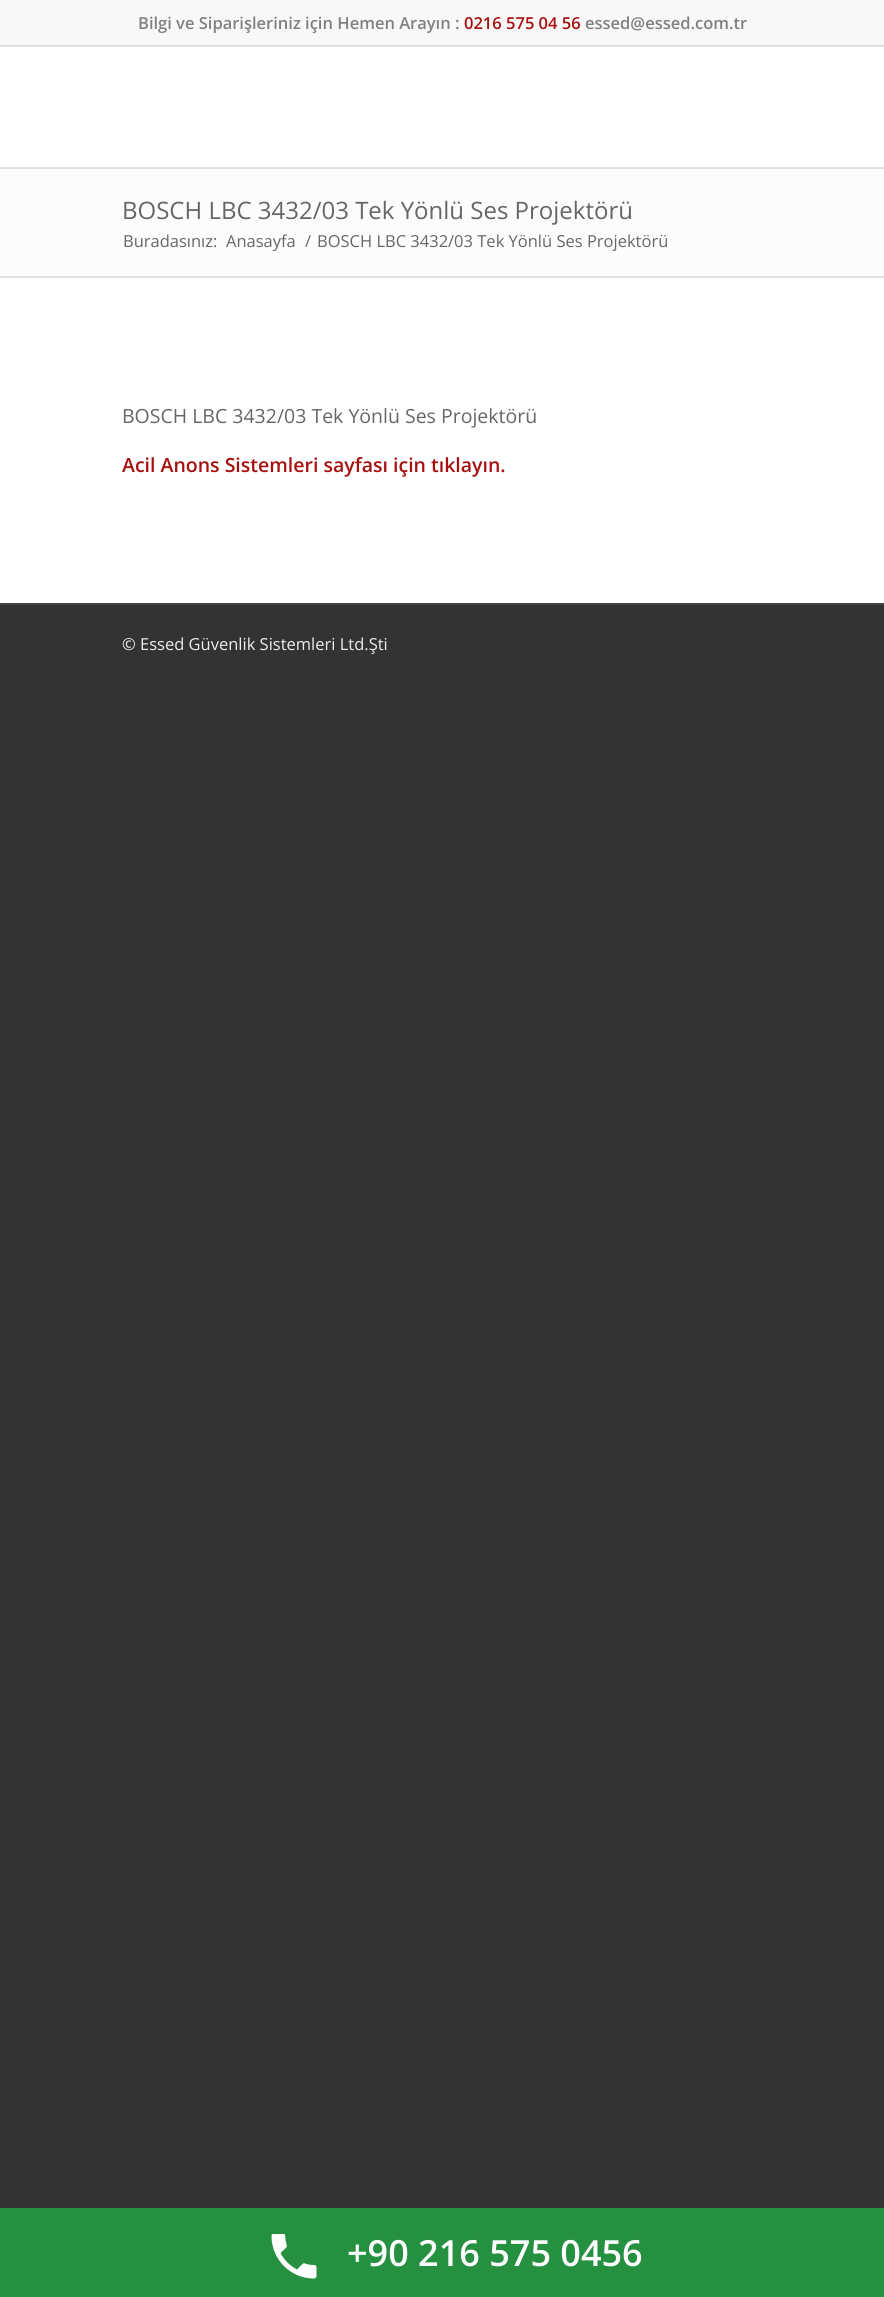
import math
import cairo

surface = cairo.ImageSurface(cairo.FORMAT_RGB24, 884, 2297)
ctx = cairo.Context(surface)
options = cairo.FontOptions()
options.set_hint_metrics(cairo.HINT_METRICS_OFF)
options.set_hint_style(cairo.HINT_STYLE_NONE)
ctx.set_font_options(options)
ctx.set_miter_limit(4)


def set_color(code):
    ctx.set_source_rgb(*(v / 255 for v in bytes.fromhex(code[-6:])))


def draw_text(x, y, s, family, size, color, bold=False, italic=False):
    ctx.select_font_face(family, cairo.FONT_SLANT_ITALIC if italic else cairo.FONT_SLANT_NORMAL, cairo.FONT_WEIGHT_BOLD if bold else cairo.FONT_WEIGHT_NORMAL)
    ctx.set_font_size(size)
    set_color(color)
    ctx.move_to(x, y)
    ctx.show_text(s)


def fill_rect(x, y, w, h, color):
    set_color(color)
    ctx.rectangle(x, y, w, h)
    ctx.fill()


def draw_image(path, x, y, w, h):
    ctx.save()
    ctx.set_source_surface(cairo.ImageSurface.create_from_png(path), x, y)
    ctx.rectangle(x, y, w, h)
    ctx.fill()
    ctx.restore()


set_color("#333333")
ctx.paint()
fill_rect(0, 47, 884, 556, "#ffffff")
fill_rect(0, 0, 884, 45, "#f8f8f8")
draw_text(138, 29, "Bilgi ve Siparişleriniz için Hemen Arayın :", "Open Sans SemiBold", 16.5, "#808080")
draw_text(464, 29, "0216 575 04 56", "Open Sans SemiBold", 16.5, "#a81010")
draw_text(585, 29, "essed@essed.com.tr", "Open Sans SemiBold", 16.5, "#808080")
fill_rect(0, 45, 884, 2, "#e1e1e1")
fill_rect(0, 167, 884, 2, "#e1e1e1")
fill_rect(0, 169, 884, 107, "#fcfcfc")
draw_text(122, 219, "BOSCH LBC 3432/03 Tek Yönlü Ses Projektörü", "Open Sans", 24, "#666666")
draw_text(123, 247, "Buradasınız:", "Open Sans", 16.5, "#666666")
draw_text(226, 247, "Anasayfa", "Open Sans", 16.5, "#666666")
draw_text(305, 247, "/", "Open Sans", 16.5, "#666666")
draw_text(317, 247, "BOSCH LBC 3432/03 Tek Yönlü Ses Projektörü", "Open Sans", 16.5, "#666666")
fill_rect(0, 276, 884, 2, "#e1e1e1")
draw_text(122, 423, "BOSCH LBC 3432/03 Tek Yönlü Ses Projektörü", "Open Sans", 19.5, "#666666")
draw_text(122, 472, "Acil Anons Sistemleri sayfası için tıklayın.", "Open Sans SemiBold", 19.5, "#a81010")
fill_rect(0, 603, 884, 2, "#444444")
draw_text(122, 650, "© Essed Güvenlik Sistemleri Ltd.Şti", "Open Sans", 16.5, "#eeeeee")
fill_rect(0, 2208, 884, 89, "#269041")
draw_image("assets/img1.png", 271, 2234, 46, 45)
draw_text(347, 2266, "+90 216 575 0456", "Open Sans SemiBold", 36, "#ffffff")
surface.write_to_png("output.png")
